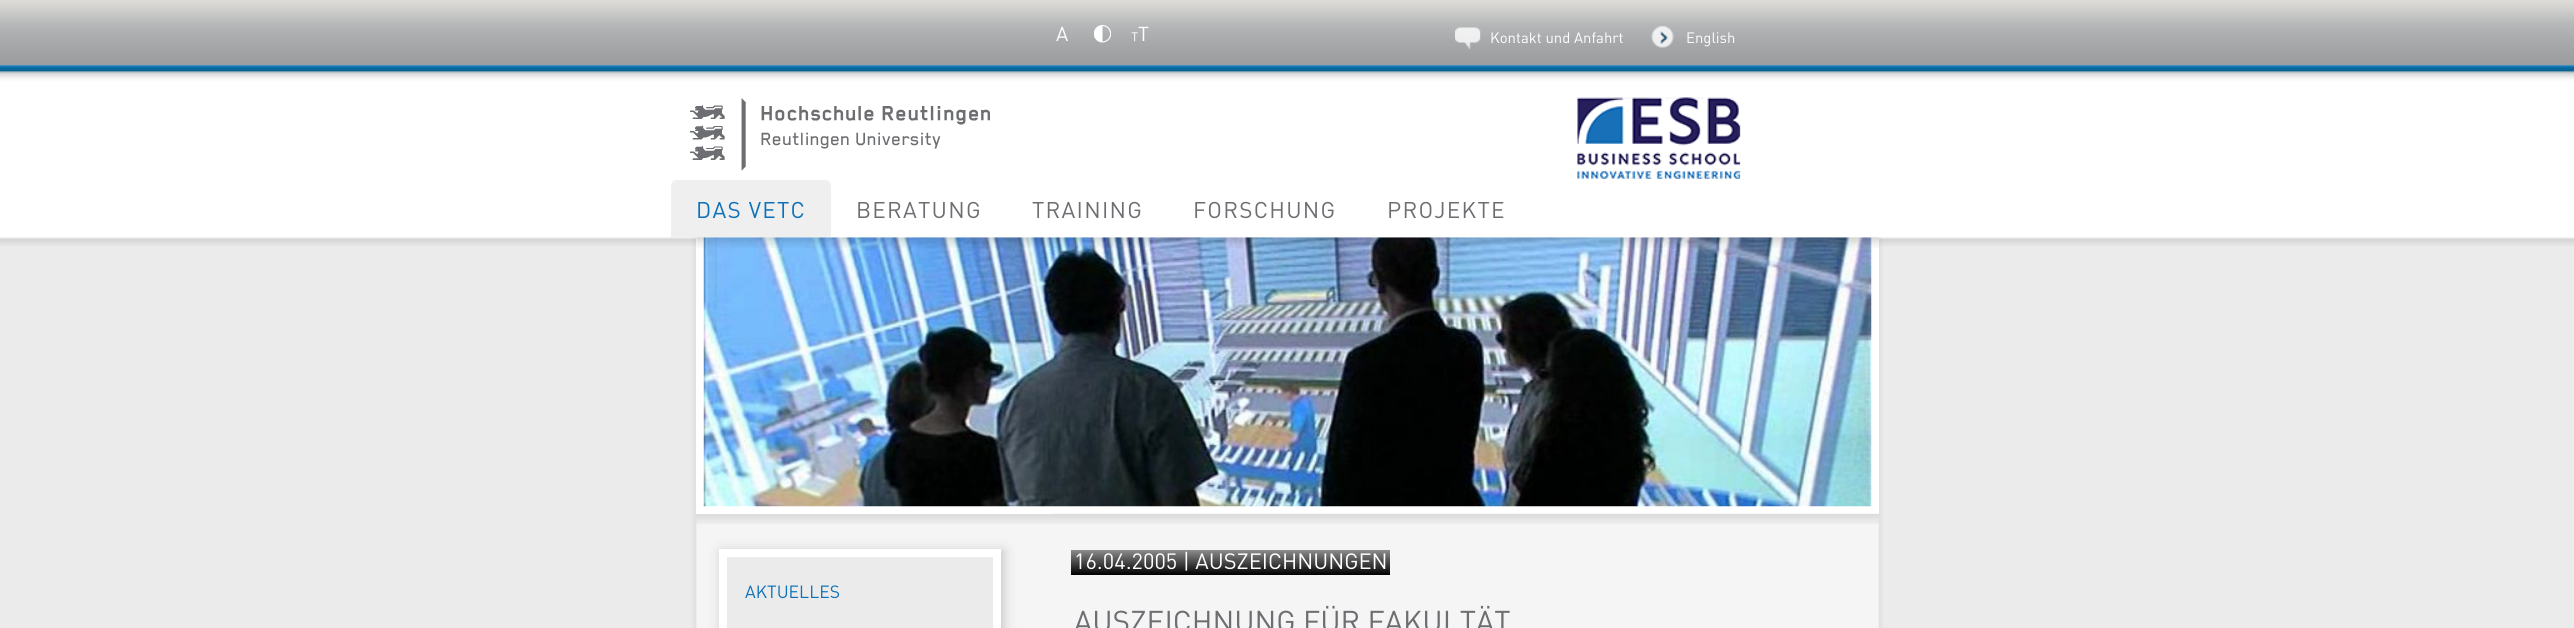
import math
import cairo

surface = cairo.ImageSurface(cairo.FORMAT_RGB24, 2574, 628)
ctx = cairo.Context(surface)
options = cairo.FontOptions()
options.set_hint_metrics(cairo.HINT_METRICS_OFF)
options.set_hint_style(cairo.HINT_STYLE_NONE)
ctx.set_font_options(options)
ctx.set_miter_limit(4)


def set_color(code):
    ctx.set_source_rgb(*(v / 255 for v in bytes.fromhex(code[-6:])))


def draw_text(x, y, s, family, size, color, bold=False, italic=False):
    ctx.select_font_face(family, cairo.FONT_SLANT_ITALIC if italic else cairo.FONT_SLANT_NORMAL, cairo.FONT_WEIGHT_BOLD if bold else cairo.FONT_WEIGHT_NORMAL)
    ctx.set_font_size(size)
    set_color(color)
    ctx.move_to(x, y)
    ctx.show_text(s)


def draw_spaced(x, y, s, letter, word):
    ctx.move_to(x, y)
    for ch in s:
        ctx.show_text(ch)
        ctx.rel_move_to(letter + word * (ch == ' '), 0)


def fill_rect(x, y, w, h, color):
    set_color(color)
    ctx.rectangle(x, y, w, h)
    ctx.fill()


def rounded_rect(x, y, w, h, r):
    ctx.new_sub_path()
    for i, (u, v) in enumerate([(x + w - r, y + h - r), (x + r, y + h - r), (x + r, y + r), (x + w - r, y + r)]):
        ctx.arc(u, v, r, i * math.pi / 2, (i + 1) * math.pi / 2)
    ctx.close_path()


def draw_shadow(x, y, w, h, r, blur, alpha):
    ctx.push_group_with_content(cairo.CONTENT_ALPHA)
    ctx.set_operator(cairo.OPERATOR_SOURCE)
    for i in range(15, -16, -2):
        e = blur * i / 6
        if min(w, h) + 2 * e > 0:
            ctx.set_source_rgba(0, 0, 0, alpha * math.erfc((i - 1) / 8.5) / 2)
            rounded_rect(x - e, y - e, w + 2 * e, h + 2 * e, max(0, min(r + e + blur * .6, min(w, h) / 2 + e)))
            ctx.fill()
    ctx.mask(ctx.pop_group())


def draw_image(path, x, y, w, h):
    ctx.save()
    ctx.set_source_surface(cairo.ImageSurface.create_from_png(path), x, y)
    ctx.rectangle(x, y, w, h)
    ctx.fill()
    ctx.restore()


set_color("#ebebeb")
ctx.paint()
draw_image("assets/img1.png", 0, 0, 2574, 246)
draw_text(1056, 41, "A", "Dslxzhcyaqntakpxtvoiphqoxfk", 20, "#ffffff")
draw_image("assets/img2.png", 1094, 25, 17, 18)
draw_image("assets/img3.png", 1131, 32, 7, 10)
draw_text(1138, 41, "T", "Dslxzhcyaqntakpxtvoiphqoxfk", 20, "#ffffff")
draw_image("assets/img4.png", 1455, 27, 26, 23)
draw_text(1490, 43, "Kontakt und Anfahrt", "Dslxzhcyaqntakpxtvoiphqoxfk", 14.9, "#ffffff")
draw_image("assets/img5.png", 1651, 26, 23, 22)
draw_text(1686, 43, "English", "Dslxzhcyaqntakpxtvoiphqoxfk", 14.9, "#ffffff")
draw_image("assets/img6.png", 690, 98, 300, 73)
draw_image("assets/img7.png", 1577, 97, 164, 82)
set_color("#efefef")
ctx.new_path()
ctx.move_to(677, 180)
ctx.line_to(825, 180)
ctx.curve_to(828.5, 180, 831, 182.5, 831, 186)
ctx.line_to(831, 238)
ctx.line_to(671, 238)
ctx.line_to(671, 186)
ctx.curve_to(671, 182.5, 673.5, 180, 677, 180)
ctx.close_path()
ctx.fill()
ctx.set_font_size(22.5)
set_color("#0e71b8")
draw_spaced(696, 218, "DAS VETC", 1.25, 0)
set_color("#6d6e71")
draw_spaced(856, 218, "BERATUNG", 1.25, 0)
draw_spaced(1032, 218, "TRAINING", 1.25, 0)
draw_spaced(1193, 218, "FORSCHUNG", 1.25, 0)
draw_spaced(1387, 218, "PROJEKTE", 1.25, 0)
draw_image("assets/img8.png", 692, 237, 1191, 391)
fill_rect(696, 238, 1183, 276, "#ffffff")
draw_image("assets/img10.png", 703, 237, 1169, 270)
draw_image("assets/img9.png", 696, 237, 1183, 11)
draw_image("assets/img11.png", 696, 514, 356, 10)
set_color("#c8c8c8")
draw_shadow(721, 551, 283, 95, 0, 6, 1)
set_color("#ebebeb")
ctx.rectangle(723, 553, 274, 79)
ctx.fill_preserve()
set_color("#ffffff")
ctx.set_line_width(8)
ctx.stroke()
draw_text(745, 598, "AKTUELLES", "Dslxzhcyaqntakpxtvoiphqoxfk", 17.5, "#0e71b8")
draw_image("assets/img12.png", 1051, 513, 828, 11)
gradient = cairo.LinearGradient(1231, 550, 1231, 575)
gradient.add_color_stop_rgba(0, 0.553, 0.553, 0.553, 1)
gradient.add_color_stop_rgba(1, 0, 0, 0, 1)
ctx.set_source(gradient)
ctx.rectangle(1071, 550, 319, 25)
ctx.fill()
draw_text(1074, 569, "16.04.2005 | AUSZEICHNUNGEN", "Dslxzhcyaqntakpxtvoiphqoxfk", 21.9, "#ffffff")
draw_text(1074, 632, "AUSZEICHNUNG FÜR FAKULTÄT", "Dslxzhcyaqntakpxtvoiphqoxfk", 29.75, "#6d6e71")
surface.write_to_png("output.png")
